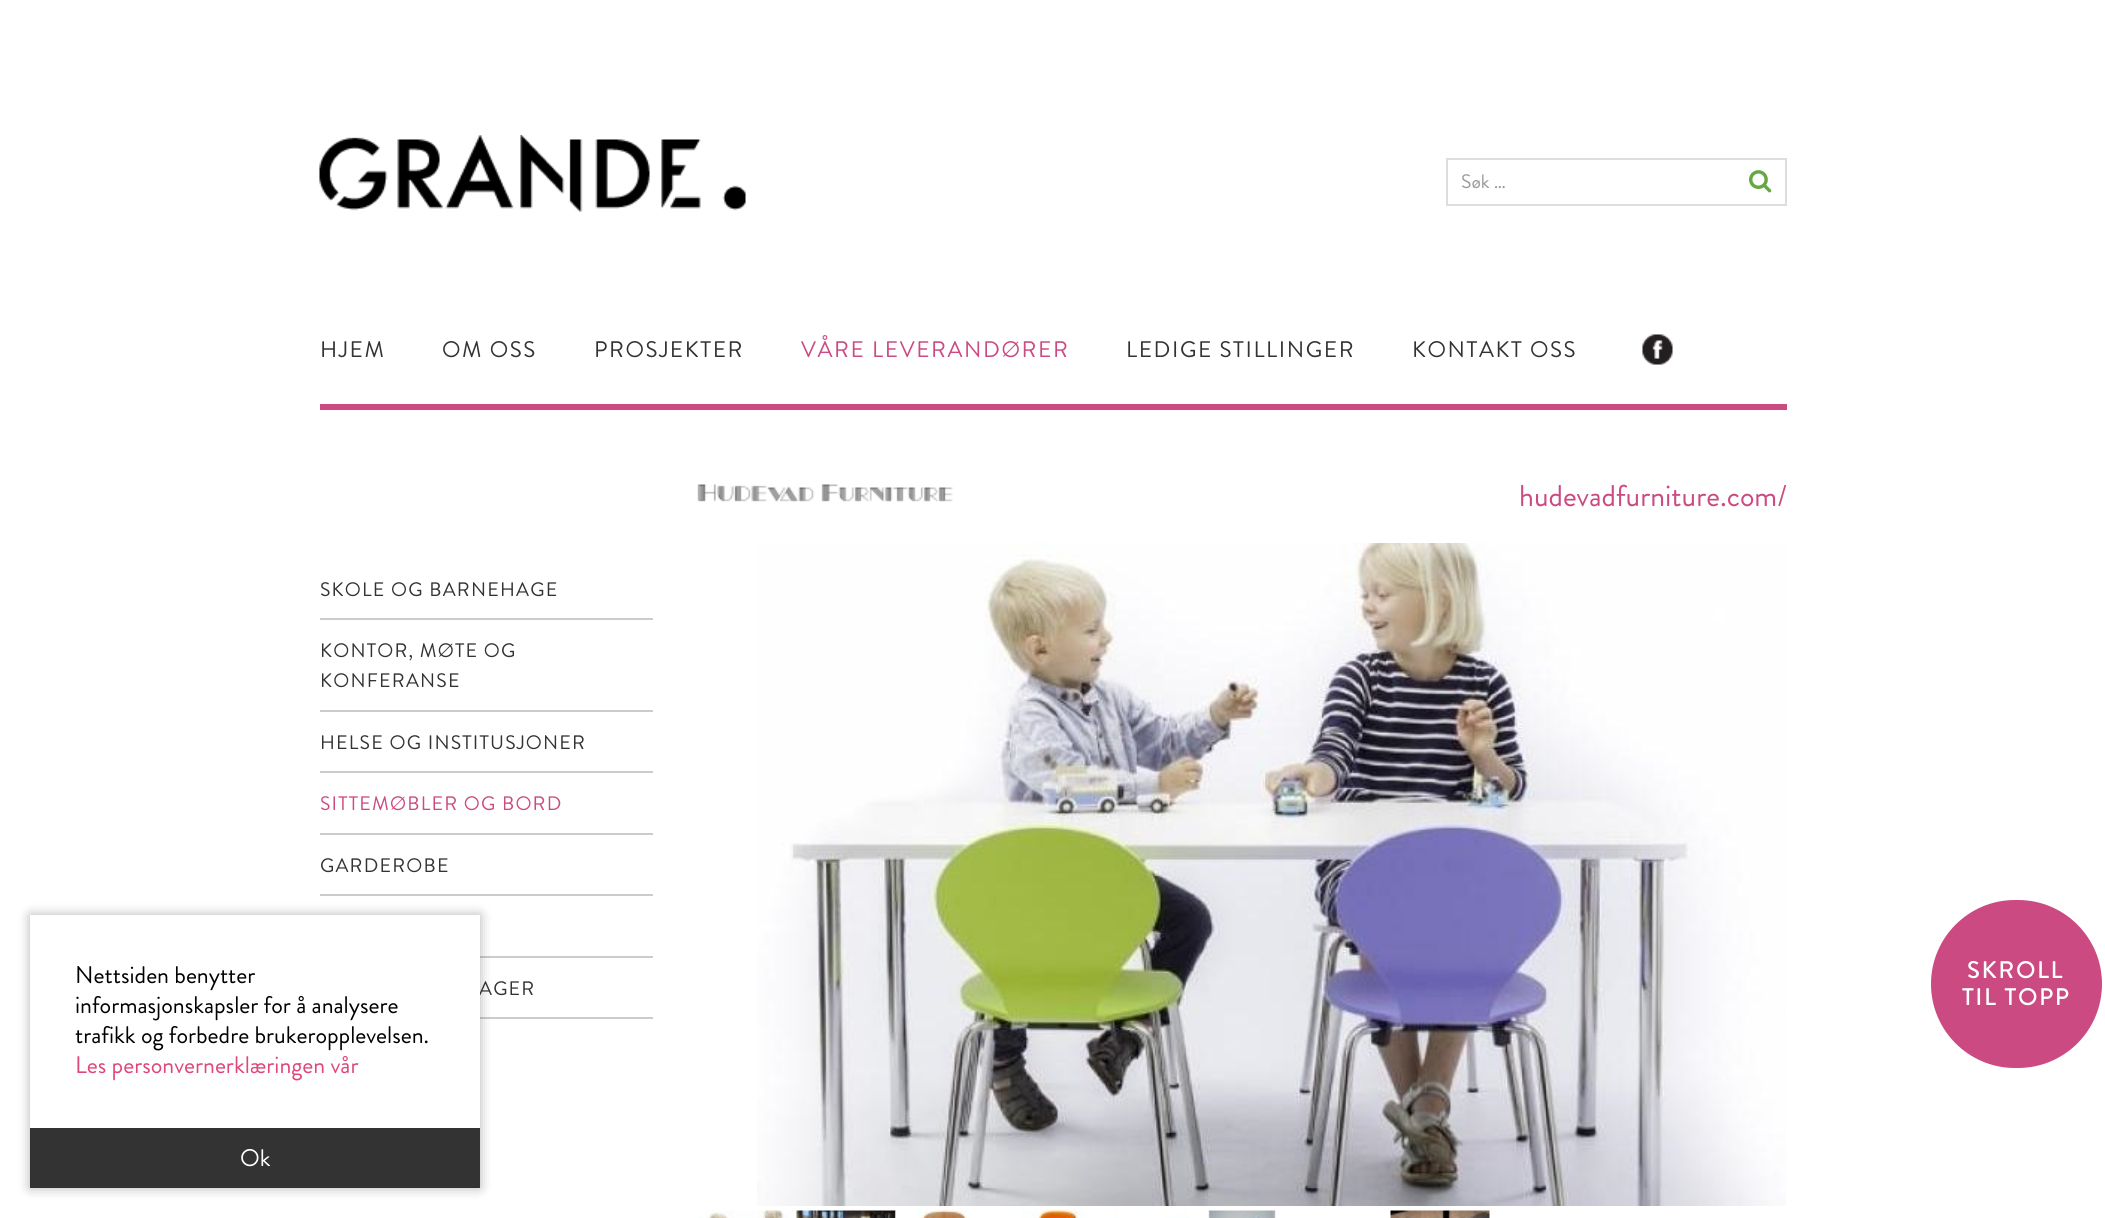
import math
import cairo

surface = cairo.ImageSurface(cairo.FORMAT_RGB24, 2105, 1218)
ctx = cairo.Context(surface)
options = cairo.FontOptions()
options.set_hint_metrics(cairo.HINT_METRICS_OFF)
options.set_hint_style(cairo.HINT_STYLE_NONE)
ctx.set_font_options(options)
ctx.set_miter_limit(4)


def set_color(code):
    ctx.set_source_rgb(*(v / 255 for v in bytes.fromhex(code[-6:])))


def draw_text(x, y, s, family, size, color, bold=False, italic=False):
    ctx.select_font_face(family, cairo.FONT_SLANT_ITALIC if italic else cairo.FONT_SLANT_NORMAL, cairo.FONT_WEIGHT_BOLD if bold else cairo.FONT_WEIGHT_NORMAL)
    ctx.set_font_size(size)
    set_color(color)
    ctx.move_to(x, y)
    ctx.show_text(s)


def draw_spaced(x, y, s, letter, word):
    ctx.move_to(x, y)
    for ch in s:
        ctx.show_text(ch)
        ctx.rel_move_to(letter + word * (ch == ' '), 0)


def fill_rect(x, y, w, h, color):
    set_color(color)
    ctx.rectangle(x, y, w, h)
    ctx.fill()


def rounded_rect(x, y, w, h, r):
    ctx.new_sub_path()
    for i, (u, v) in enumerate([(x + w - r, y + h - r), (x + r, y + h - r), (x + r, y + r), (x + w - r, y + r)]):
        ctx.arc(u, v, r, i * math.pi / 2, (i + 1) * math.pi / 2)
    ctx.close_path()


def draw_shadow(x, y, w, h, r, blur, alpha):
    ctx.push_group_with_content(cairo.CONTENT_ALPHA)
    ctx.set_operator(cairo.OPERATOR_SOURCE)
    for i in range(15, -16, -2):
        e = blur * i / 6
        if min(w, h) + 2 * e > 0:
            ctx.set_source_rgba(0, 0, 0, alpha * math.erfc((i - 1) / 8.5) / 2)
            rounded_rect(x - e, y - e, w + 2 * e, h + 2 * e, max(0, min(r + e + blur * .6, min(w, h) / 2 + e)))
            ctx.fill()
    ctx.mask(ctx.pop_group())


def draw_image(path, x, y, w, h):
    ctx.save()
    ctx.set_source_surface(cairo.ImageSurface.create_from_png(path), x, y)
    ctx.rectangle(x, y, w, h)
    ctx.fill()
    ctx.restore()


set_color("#ffffff")
ctx.paint()
draw_image("assets/img1.png", 319, 135, 427, 77)
ctx.rectangle(1447, 159, 339, 46)
set_color("#dddddd")
ctx.stroke()
draw_text(1461, 188, "Søk …", "Brandon Grotesque", 19.5, "#999999")
draw_image("assets/img2.png", 1749, 170, 23, 23)
fill_rect(320, 404, 1467, 6, "#cb4a81")
ctx.set_font_size(22.5)
set_color("#333333")
draw_spaced(320, 357, "HJEM", 1.6, 0)
draw_spaced(442, 357, "OM OSS", 1.6, 0)
draw_spaced(594, 357, "PROSJEKTER", 1.6, 0)
set_color("#cb4a81")
draw_spaced(801, 357, "VÅRE LEVERANDØRER", 1.6, 0)
set_color("#333333")
draw_spaced(1126, 357, "LEDIGE STILLINGER", 1.6, 0)
draw_spaced(1412, 357, "KONTAKT OSS", 1.6, 0)
draw_image("assets/img3.png", 1642, 334, 31, 31)
fill_rect(480, 956, 173, 2, "#cccccc")
fill_rect(480, 1017, 173, 2, "#cccccc")
set_color("#000000")
draw_shadow(30, 915, 450, 273, 0, 6, 0.3)
ctx.set_font_size(19.5)
set_color("#333333")
draw_spaced(479, 995, "AGER", 1.2, 0)
fill_rect(30, 915, 450, 213, "#ffffff")
draw_text(75, 983, "Nettsiden benytter", "Brandon Grotesque", 24, "#000000")
draw_text(75, 1013, "informasjonskapsler for å analysere", "Brandon Grotesque", 24, "#000000")
draw_text(75, 1043, "trafikk og forbedre brukeropplevelsen.", "Brandon Grotesque", 24, "#000000")
draw_text(75, 1073, "Les personvernerklæringen vår", "Brandon Grotesque", 24, "#e0457b")
fill_rect(30, 1128, 450, 60, "#333333")
draw_text(240, 1166, "Ok", "Brandon Grotesque", 24, "#ffffff")
draw_image("assets/img4.png", 697, 484, 256, 18)
draw_text(1519, 506, "hudevadfurniture.com/", "Brandon Grotesque", 30, "#cb4a81")
draw_image("assets/img5.png", 757, 543, 1029, 663)
draw_image("assets/img6.png", 698, 1210, 96, 8)
draw_image("assets/img7.png", 796, 1210, 100, 8)
draw_image("assets/img8.png", 895, 1210, 74, 8)
draw_image("assets/img9.png", 1022, 1210, 65, 8)
draw_image("assets/img10.png", 1114, 1211, 75, 7)
draw_image("assets/img11.png", 1208, 1210, 68, 8)
draw_image("assets/img12.png", 1390, 1210, 100, 8)
fill_rect(320, 618, 333, 2, "#cccccc")
ctx.set_font_size(19.5)
set_color("#333333")
draw_spaced(320, 596, "SKOLE OG BARNEHAGE", 1.2, 0)
fill_rect(320, 710, 333, 2, "#cccccc")
set_color("#333333")
draw_spaced(320, 657, "KONTOR, MØTE OG", 1.2, 0)
draw_spaced(320, 687, "KONFERANSE", 1.2, 0)
fill_rect(320, 771, 333, 2, "#cccccc")
set_color("#333333")
draw_spaced(320, 749, "HELSE OG INSTITUSJONER", 1.2, 0)
fill_rect(320, 833, 333, 2, "#cccccc")
set_color("#cb4a81")
draw_spaced(320, 810, "SITTEMØBLER OG BORD", 1.2, 0)
fill_rect(320, 894, 333, 2, "#cccccc")
set_color("#333333")
draw_spaced(320, 872, "GARDEROBE", 1.2, 0)
set_color("#cb4a81")
rounded_rect(1931, 900, 171, 168, 84)
ctx.fill()
ctx.select_font_face("Brandon Grotesque Medium")
ctx.set_font_size(24)
set_color("#ffffff")
draw_spaced(1967, 978, "SKROLL", 1.6, 0)
draw_spaced(1962, 1005, "TIL TOPP", 1.6, 0)
surface.write_to_png("output.png")
